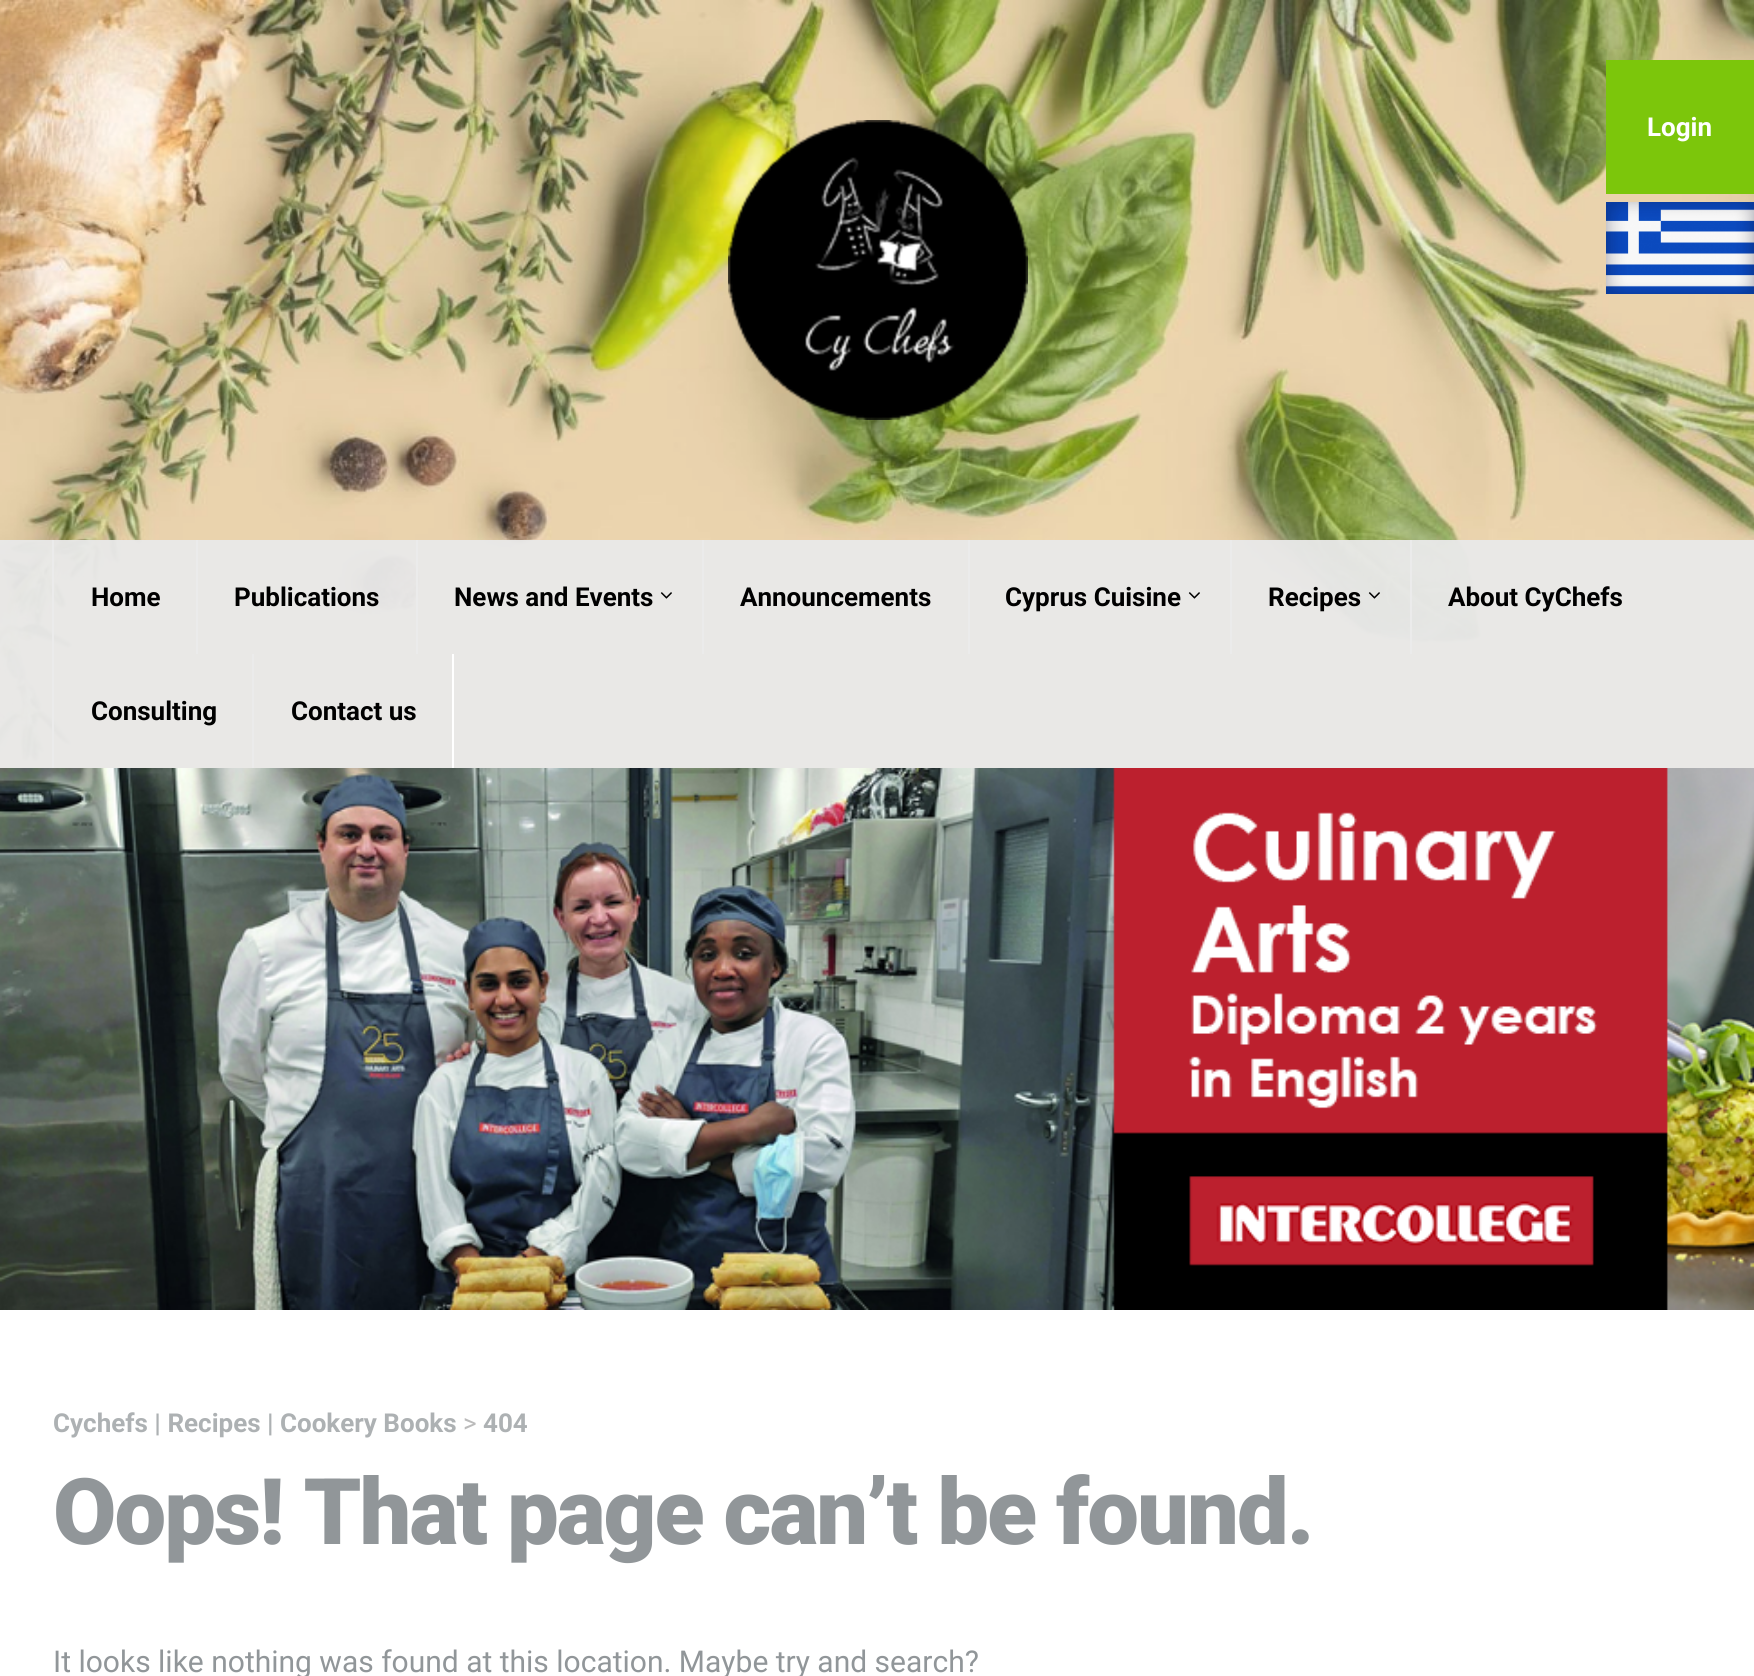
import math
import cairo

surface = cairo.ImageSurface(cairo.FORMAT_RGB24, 1754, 1676)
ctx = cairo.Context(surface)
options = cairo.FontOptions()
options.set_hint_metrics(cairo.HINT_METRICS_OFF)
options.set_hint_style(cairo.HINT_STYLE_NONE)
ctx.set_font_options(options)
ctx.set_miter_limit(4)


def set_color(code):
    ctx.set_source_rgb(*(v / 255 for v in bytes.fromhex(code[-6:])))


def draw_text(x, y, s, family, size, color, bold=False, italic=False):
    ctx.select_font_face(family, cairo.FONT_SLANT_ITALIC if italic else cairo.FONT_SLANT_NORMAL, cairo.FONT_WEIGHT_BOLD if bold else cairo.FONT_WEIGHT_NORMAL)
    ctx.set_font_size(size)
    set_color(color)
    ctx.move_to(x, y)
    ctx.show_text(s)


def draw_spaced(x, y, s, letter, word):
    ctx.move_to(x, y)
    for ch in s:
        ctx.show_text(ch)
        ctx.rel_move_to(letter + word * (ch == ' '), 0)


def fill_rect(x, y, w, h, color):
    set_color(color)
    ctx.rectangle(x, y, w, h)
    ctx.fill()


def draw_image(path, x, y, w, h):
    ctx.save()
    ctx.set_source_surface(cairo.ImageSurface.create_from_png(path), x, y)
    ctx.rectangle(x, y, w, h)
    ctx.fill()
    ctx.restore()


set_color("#ffffff")
ctx.paint()
draw_image("assets/img1.png", 0, 0, 1754, 768)
draw_image("assets/img2.png", 728, 120, 300, 300)
fill_rect(1606, 60, 148, 134, "#7cc60b")
draw_text(1647, 136, "Login", "Roboto", 26, "#ffffff", bold=True)
draw_image("assets/img3.png", 1606, 202, 148, 92)
ctx.set_source_rgba(0.914, 0.914, 0.914, 0.95)
ctx.rectangle(0, 540, 1754, 228)
ctx.fill()
fill_rect(52, 540, 2, 228, "#ebebeb")
draw_text(91, 606, "Home", "Roboto", 26, "#000000", bold=True)
fill_rect(196, 540, 2, 114, "#ebebeb")
draw_text(234, 606, "Publications", "Roboto", 26, "#000000", bold=True)
fill_rect(416, 540, 2, 114, "#ebebeb")
draw_text(454, 606, "News and Events", "Roboto", 26, "#000000", bold=True)
draw_image("assets/img4.png", 660, 592, 12, 7)
fill_rect(702, 540, 2, 114, "#ebebeb")
draw_text(740, 606, "Announcements", "Roboto", 26, "#000000", bold=True)
fill_rect(968, 540, 2, 114, "#ebebeb")
draw_text(1005, 606, "Cyprus Cuisine", "Roboto", 26, "#000000", bold=True)
draw_image("assets/img5.png", 1188, 592, 12, 7)
fill_rect(1230, 540, 2, 114, "#ebebeb")
draw_text(1268, 606, "Recipes", "Roboto", 26, "#000000", bold=True)
draw_image("assets/img6.png", 1368, 592, 12, 7)
fill_rect(1410, 540, 2, 114, "#ebebeb")
draw_text(1448, 606, "About CyChefs", "Roboto", 26, "#000000", bold=True)
draw_text(91, 720, "Consulting", "Roboto", 26, "#000000", bold=True)
fill_rect(452, 654, 2, 114, "#ffffff")
fill_rect(252, 654, 2, 114, "#ebebeb")
draw_text(291, 720, "Contact us", "Roboto", 26, "#000000", bold=True)
draw_image("assets/img7.png", 0, 768, 1754, 542)
draw_text(53, 1432, "Cychefs | Recipes | Cookery Books", "Roboto", 26, "#adb1b3", bold=True)
draw_text(463, 1432, ">", "Roboto", 26, "#bbbbbb")
draw_text(483, 1432, "404", "Roboto", 26, "#adb1b3", bold=True)
ctx.select_font_face("Roboto Black")
ctx.set_font_size(92)
set_color("#919699")
draw_spaced(53, 1544, "Oops! That page can’t be found.", -2, 0)
draw_text(53, 1672, "It looks like nothing was found at this location. Maybe try and search?", "Roboto", 30, "#919699")
surface.write_to_png("output.png")
